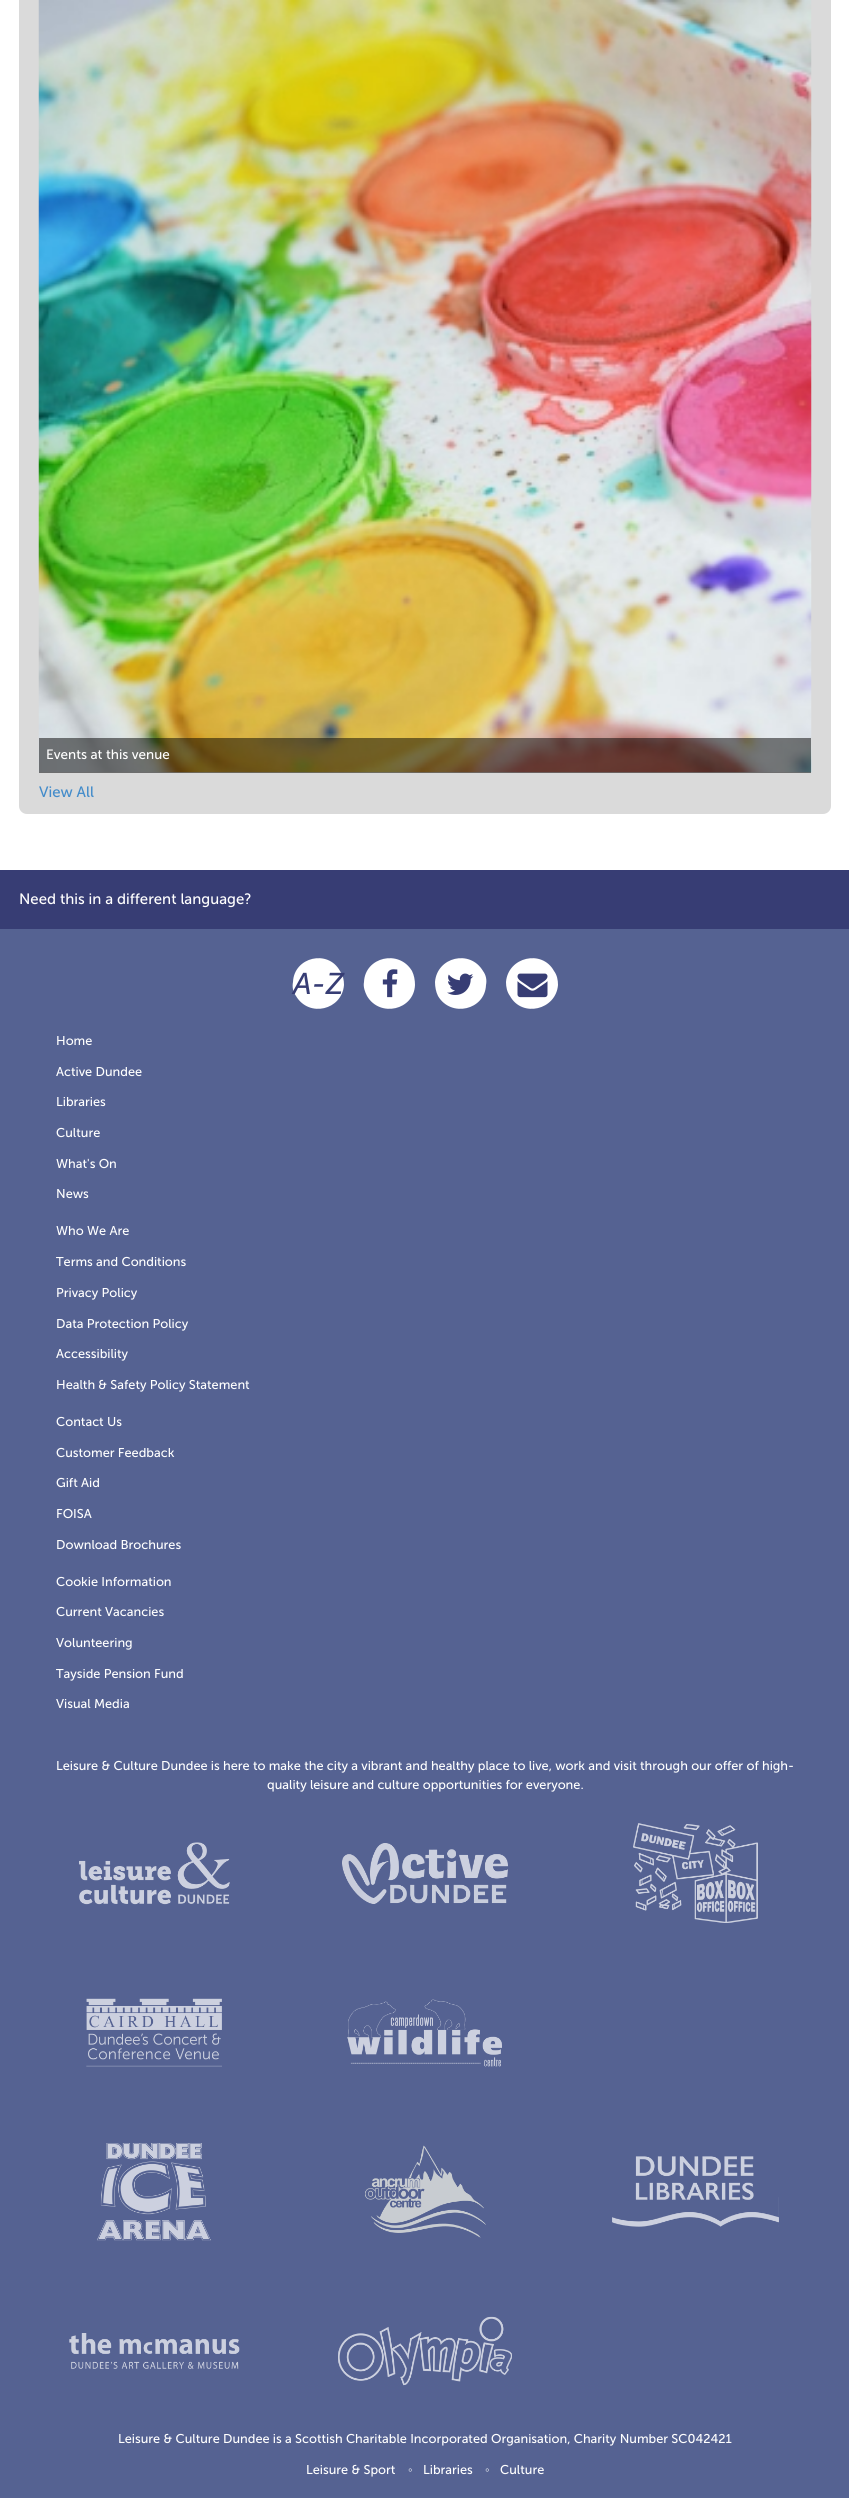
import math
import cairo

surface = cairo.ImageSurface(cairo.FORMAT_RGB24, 849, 2498)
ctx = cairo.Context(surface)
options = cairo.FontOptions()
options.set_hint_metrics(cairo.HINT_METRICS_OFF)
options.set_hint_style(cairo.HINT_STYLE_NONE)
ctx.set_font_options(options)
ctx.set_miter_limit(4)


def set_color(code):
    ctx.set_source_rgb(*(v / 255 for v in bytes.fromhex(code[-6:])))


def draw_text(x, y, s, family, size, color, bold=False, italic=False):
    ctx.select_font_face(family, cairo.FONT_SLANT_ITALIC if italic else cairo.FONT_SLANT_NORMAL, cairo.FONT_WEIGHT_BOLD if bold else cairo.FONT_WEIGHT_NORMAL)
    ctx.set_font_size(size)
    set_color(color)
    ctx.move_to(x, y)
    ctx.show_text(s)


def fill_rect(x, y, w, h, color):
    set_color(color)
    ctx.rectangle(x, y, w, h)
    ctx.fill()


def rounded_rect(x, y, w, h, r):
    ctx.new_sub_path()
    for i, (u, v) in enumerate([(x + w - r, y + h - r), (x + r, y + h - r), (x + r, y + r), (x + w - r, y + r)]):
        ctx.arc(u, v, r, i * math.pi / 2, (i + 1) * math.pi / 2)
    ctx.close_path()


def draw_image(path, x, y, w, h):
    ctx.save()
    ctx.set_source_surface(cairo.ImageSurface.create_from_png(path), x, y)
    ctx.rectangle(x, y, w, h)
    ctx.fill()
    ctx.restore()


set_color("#ffffff")
ctx.paint()
set_color("#dadada")
rounded_rect(19, -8, 812, 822, 8)
ctx.fill()
draw_image("assets/img1.png", 38, 0, 774, 773)
ctx.set_source_rgba(0, 0, 0, 0.5)
ctx.rectangle(39, 738, 772, 35)
ctx.fill()
draw_text(46, 759, "Events at this venue", "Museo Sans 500", 13.5, "#ffffff")
draw_text(39, 797, "View All", "Museo Sans 500", 15, "#428bca")
fill_rect(0, 870, 849, 59, "#373d74")
draw_text(19, 904, "Need this in a different language?", "Museo Sans 500", 15, "#ffffff")
fill_rect(0, 929, 849, 1569, "#556292")
set_color("#ffffff")
ctx.new_path()
ctx.move_to(340, 971)
ctx.curve_to(343, 975, 344, 980, 344, 985)
ctx.curve_to(342, 1010, 309, 1018, 296, 996)
ctx.curve_to(293, 992, 292, 987, 293, 982)
ctx.curve_to(294, 957, 328, 949, 340, 971)
ctx.close_path()
ctx.fill()
draw_text(293, 994, "A-Z", "Museo Sans 500", 30, "#373d74", italic=True)
set_color("#ffffff")
ctx.new_path()
ctx.move_to(412, 971)
ctx.curve_to(414, 975, 415, 980, 415, 985)
ctx.curve_to(414, 1010, 380, 1018, 367, 996)
ctx.curve_to(365, 992, 363, 987, 364, 982)
ctx.curve_to(365, 957, 399, 949, 412, 971)
ctx.close_path()
ctx.fill()
draw_image("assets/img2.png", 382, 969, 16, 29)
ctx.new_path()
ctx.move_to(483, 971)
ctx.curve_to(486, 975, 487, 980, 486, 985)
ctx.curve_to(485, 1010, 451, 1018, 438, 996)
ctx.curve_to(436, 992, 435, 987, 435, 982)
ctx.curve_to(437, 957, 470, 949, 483, 971)
ctx.close_path()
ctx.fill()
draw_image("assets/img3.png", 447, 973, 27, 22)
ctx.new_path()
ctx.move_to(554, 971)
ctx.curve_to(557, 975, 558, 980, 558, 985)
ctx.curve_to(556, 1010, 522, 1018, 510, 996)
ctx.curve_to(507, 992, 506, 987, 506, 982)
ctx.curve_to(508, 957, 542, 949, 554, 971)
ctx.close_path()
ctx.fill()
draw_image("assets/img4.png", 517, 973, 31, 25)
draw_text(56, 1045, "Home", "Museo Sans 500", 12.75, "#ffffff")
draw_text(56, 1076, "Active Dundee", "Museo Sans 500", 12.75, "#ffffff")
draw_text(56, 1106, "Libraries", "Museo Sans 500", 12.75, "#ffffff")
draw_text(56, 1137, "Culture", "Museo Sans 500", 12.75, "#ffffff")
draw_text(56, 1168, "What's On", "Museo Sans 500", 12.75, "#ffffff")
draw_text(56, 1198, "News", "Museo Sans 500", 12.75, "#ffffff")
draw_text(56, 1235, "Who We Are", "Museo Sans 500", 12.75, "#ffffff")
draw_text(56, 1266, "Terms and Conditions", "Museo Sans 500", 12.75, "#ffffff")
draw_text(56, 1297, "Privacy Policy", "Museo Sans 500", 12.75, "#ffffff")
draw_text(56, 1328, "Data Protection Policy", "Museo Sans 500", 12.75, "#ffffff")
draw_text(56, 1358, "Accessibility", "Museo Sans 500", 12.75, "#ffffff")
draw_text(56, 1389, "Health & Safety Policy Statement", "Museo Sans 500", 12.75, "#ffffff")
draw_text(56, 1426, "Contact Us", "Museo Sans 500", 12.75, "#ffffff")
draw_text(56, 1457, "Customer Feedback", "Museo Sans 500", 12.75, "#ffffff")
draw_text(56, 1487, "Gift Aid", "Museo Sans 500", 12.75, "#ffffff")
draw_text(56, 1518, "FOISA", "Museo Sans 500", 12.75, "#ffffff")
draw_text(56, 1549, "Download Brochures", "Museo Sans 500", 12.75, "#ffffff")
draw_text(56, 1586, "Cookie Information", "Museo Sans 500", 12.75, "#ffffff")
draw_text(56, 1616, "Current Vacancies", "Museo Sans 500", 12.75, "#ffffff")
draw_text(56, 1647, "Volunteering", "Museo Sans 500", 12.75, "#ffffff")
draw_text(56, 1678, "Tayside Pension Fund", "Museo Sans 500", 12.75, "#ffffff")
draw_text(56, 1708, "Visual Media", "Museo Sans 500", 12.75, "#ffffff")
draw_text(56, 1770, "Leisure & Culture Dundee is here to make the city a vibrant and healthy place to live, work and visit through our offer of high-", "Museo Sans 500", 12.75, "#ffffff")
draw_text(267, 1789, "quality leisure and culture opportunities for everyone.", "Museo Sans 500", 12.75, "#ffffff")
draw_image("assets/img5.png", 79, 1842, 151, 63)
draw_image("assets/img6.png", 342, 1843, 166, 61)
draw_image("assets/img7.png", 633, 1823, 125, 100)
draw_image("assets/img8.png", 86, 1998, 136, 69)
draw_image("assets/img9.png", 347, 1999, 155, 68)
draw_image("assets/img10.png", 97, 2143, 114, 98)
draw_image("assets/img11.png", 365, 2145, 121, 93)
draw_image("assets/img12.png", 612, 2156, 167, 71)
draw_image("assets/img13.png", 69, 2333, 171, 36)
draw_image("assets/img14.png", 338, 2316, 174, 70)
draw_text(118, 2443, "Leisure & Culture Dundee is a Scottish Charitable Incorporated Organisation, Charity Number SC042421", "Museo Sans 500", 12.75, "#ffffff")
draw_text(306, 2474, "Leisure & Sport", "Museo Sans 500", 12.75, "#ffffff")
draw_text(408, 2474, "◦", "Liberation Sans", 12.75, "#ffffff")
draw_text(423, 2474, "Libraries", "Museo Sans 500", 12.75, "#ffffff")
draw_text(485, 2474, "◦", "Liberation Sans", 12.75, "#ffffff")
draw_text(500, 2474, "Culture", "Museo Sans 500", 12.75, "#ffffff")
surface.write_to_png("output.png")
